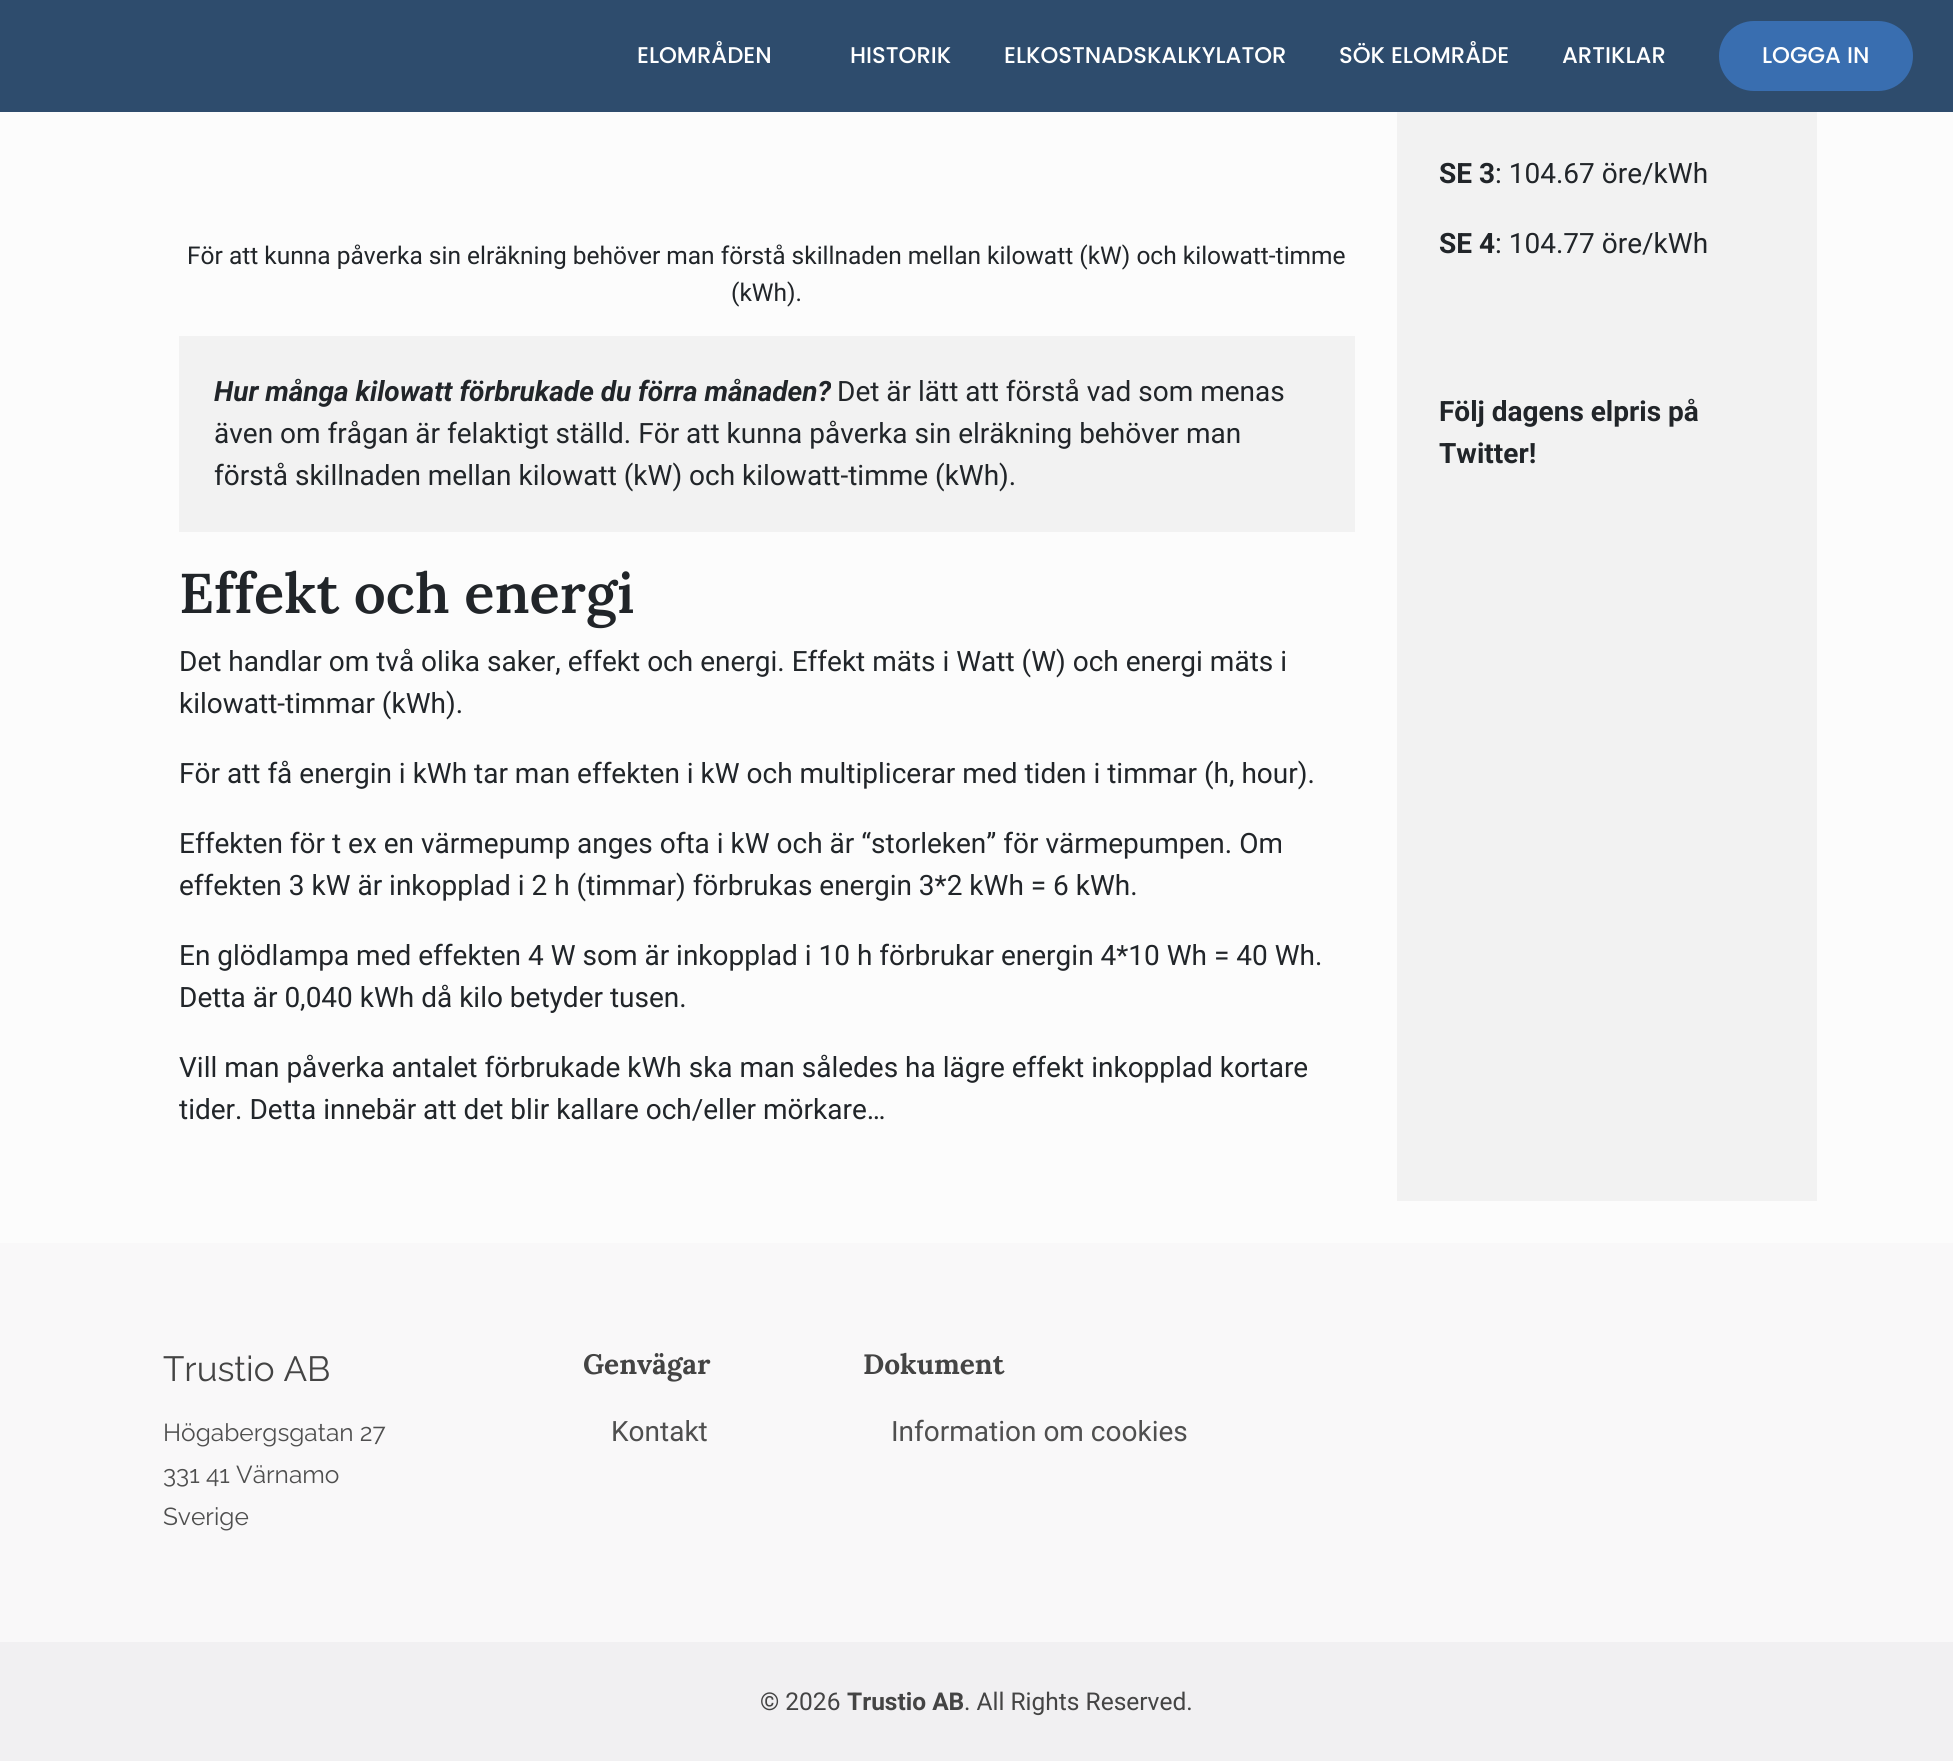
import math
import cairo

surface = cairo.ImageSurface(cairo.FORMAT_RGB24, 1953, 1761)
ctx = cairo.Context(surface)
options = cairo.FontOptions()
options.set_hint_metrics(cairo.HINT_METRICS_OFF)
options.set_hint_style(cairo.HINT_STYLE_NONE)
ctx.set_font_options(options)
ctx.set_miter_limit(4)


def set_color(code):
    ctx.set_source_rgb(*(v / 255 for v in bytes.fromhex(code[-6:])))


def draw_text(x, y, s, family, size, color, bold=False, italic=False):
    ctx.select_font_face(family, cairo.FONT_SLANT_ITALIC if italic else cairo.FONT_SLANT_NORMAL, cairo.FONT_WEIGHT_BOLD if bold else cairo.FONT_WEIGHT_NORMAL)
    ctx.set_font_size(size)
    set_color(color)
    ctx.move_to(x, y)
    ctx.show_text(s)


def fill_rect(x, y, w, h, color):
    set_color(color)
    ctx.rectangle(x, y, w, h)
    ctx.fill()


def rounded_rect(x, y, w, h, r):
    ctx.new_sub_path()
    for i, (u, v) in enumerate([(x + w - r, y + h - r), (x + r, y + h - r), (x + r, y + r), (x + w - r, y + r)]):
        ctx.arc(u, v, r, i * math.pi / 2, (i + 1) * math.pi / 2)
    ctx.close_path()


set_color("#fcfcfc")
ctx.paint()
fill_rect(0, 0, 1953, 112, "#2e4c6d")
draw_text(637, 63, "ELOMRÅDEN", "Poppins Medium", 22.75, "#ffffff")
draw_text(850, 63, "HISTORIK", "Poppins Medium", 22.75, "#ffffff")
draw_text(1004, 63, "ELKOSTNADSKALKYLATOR", "Poppins Medium", 22.75, "#ffffff")
draw_text(1339, 63, "SÖK ELOMRÅDE", "Poppins Medium", 22.75, "#ffffff")
draw_text(1562, 63, "ARTIKLAR", "Poppins Medium", 22.75, "#ffffff")
set_color("#396eb0")
rounded_rect(1719, 21, 194, 70, 35)
ctx.fill()
draw_text(1762, 63, "LOGGA IN", "Poppins Medium", 22.75, "#ffffff")
draw_text(187, 264, "För att kunna påverka sin elräkning behöver man förstå skillnaden mellan kilowatt (kW) och kilowatt-timme", "Roboto", 24.5, "#212529")
draw_text(731, 301, "(kWh).", "Roboto", 24.5, "#212529")
fill_rect(179, 336, 1176, 196, "#f2f2f2")
draw_text(214, 401, "Hur många kilowatt förbrukade du förra månaden?", "Roboto", 28, "#212529", bold=True, italic=True)
draw_text(837, 401, "Det är lätt att förstå vad som menas", "Roboto", 28, "#212529")
draw_text(214, 443, "även om frågan är felaktigt ställd. För att kunna påverka sin elräkning behöver man", "Roboto", 28, "#212529")
draw_text(214, 485, "förstå skillnaden mellan kilowatt (kW) och kilowatt-timme (kWh).", "Roboto", 28, "#212529")
draw_text(179, 613, "Effekt och energi", "Lora SemiBold", 56, "#212529")
draw_text(179, 671, "Det handlar om två olika saker, effekt och energi. Effekt mäts i Watt (W) och energi mäts i", "Roboto", 28, "#212529")
draw_text(179, 713, "kilowatt-timmar (kWh).", "Roboto", 28, "#212529")
draw_text(179, 783, "För att få energin i kWh tar man effekten i kW och multiplicerar med tiden i timmar (h, hour).", "Roboto", 28, "#212529")
draw_text(179, 853, "Effekten för t ex en värmepump anges ofta i kW och är “storleken” för värmepumpen. Om", "Roboto", 28, "#212529")
draw_text(179, 895, "effekten 3 kW är inkopplad i 2 h (timmar) förbrukas energin 3*2 kWh = 6 kWh.", "Roboto", 28, "#212529")
draw_text(179, 965, "En glödlampa med effekten 4 W som är inkopplad i 10 h förbrukar energin 4*10 Wh = 40 Wh.", "Roboto", 28, "#212529")
draw_text(179, 1007, "Detta är 0,040 kWh då kilo betyder tusen.", "Roboto", 28, "#212529")
draw_text(179, 1077, "Vill man påverka antalet förbrukade kWh ska man således ha lägre effekt inkopplad kortare", "Roboto", 28, "#212529")
draw_text(179, 1119, "tider. Detta innebär att det blir kallare och/eller mörkare…", "Roboto", 28, "#212529")
fill_rect(1397, 112, 420, 1089, "#f2f2f2")
draw_text(1439, 183, "SE 3", "Roboto", 28, "#212529", bold=True)
draw_text(1495, 183, ": 104.67 öre/kWh", "Roboto", 28, "#212529")
draw_text(1439, 253, "SE 4", "Roboto", 28, "#212529", bold=True)
draw_text(1495, 253, ": 104.77 öre/kWh", "Roboto", 28, "#212529")
draw_text(1439, 421, "Följ dagens elpris på", "Roboto", 28, "#212529", bold=True)
draw_text(1439, 463, "Twitter!", "Roboto", 28, "#212529", bold=True)
fill_rect(0, 1642, 1953, 119, "#f1f0f2")
fill_rect(0, 1243, 1953, 399, "#f9f8f9")
draw_text(163, 1381, "Trustio AB", "Raleway", 35, "#444444")
draw_text(163, 1441, "Högabergsgatan 27", "Raleway", 24.5, "#4f4f4f")
draw_text(163, 1483, "331 41 Värnamo", "Raleway", 24.5, "#4f4f4f")
draw_text(163, 1525, "Sverige", "Raleway", 24.5, "#4f4f4f")
draw_text(583, 1374, "Genvägar", "Lora", 28, "#444444", bold=True)
draw_text(611, 1441, "Kontakt", "Roboto", 28, "#4f4f4f")
draw_text(863, 1374, "Dokument", "Lora", 28, "#444444", bold=True)
draw_text(891, 1441, "Information om cookies", "Roboto", 28, "#4f4f4f")
draw_text(760, 1710, "© 2026", "Roboto", 24.5, "#444444")
draw_text(847, 1710, "Trustio AB", "Roboto", 24.5, "#444444", bold=True)
draw_text(964, 1710, ". All Rights Reserved.", "Roboto", 24.5, "#444444")
surface.write_to_png("output.png")
